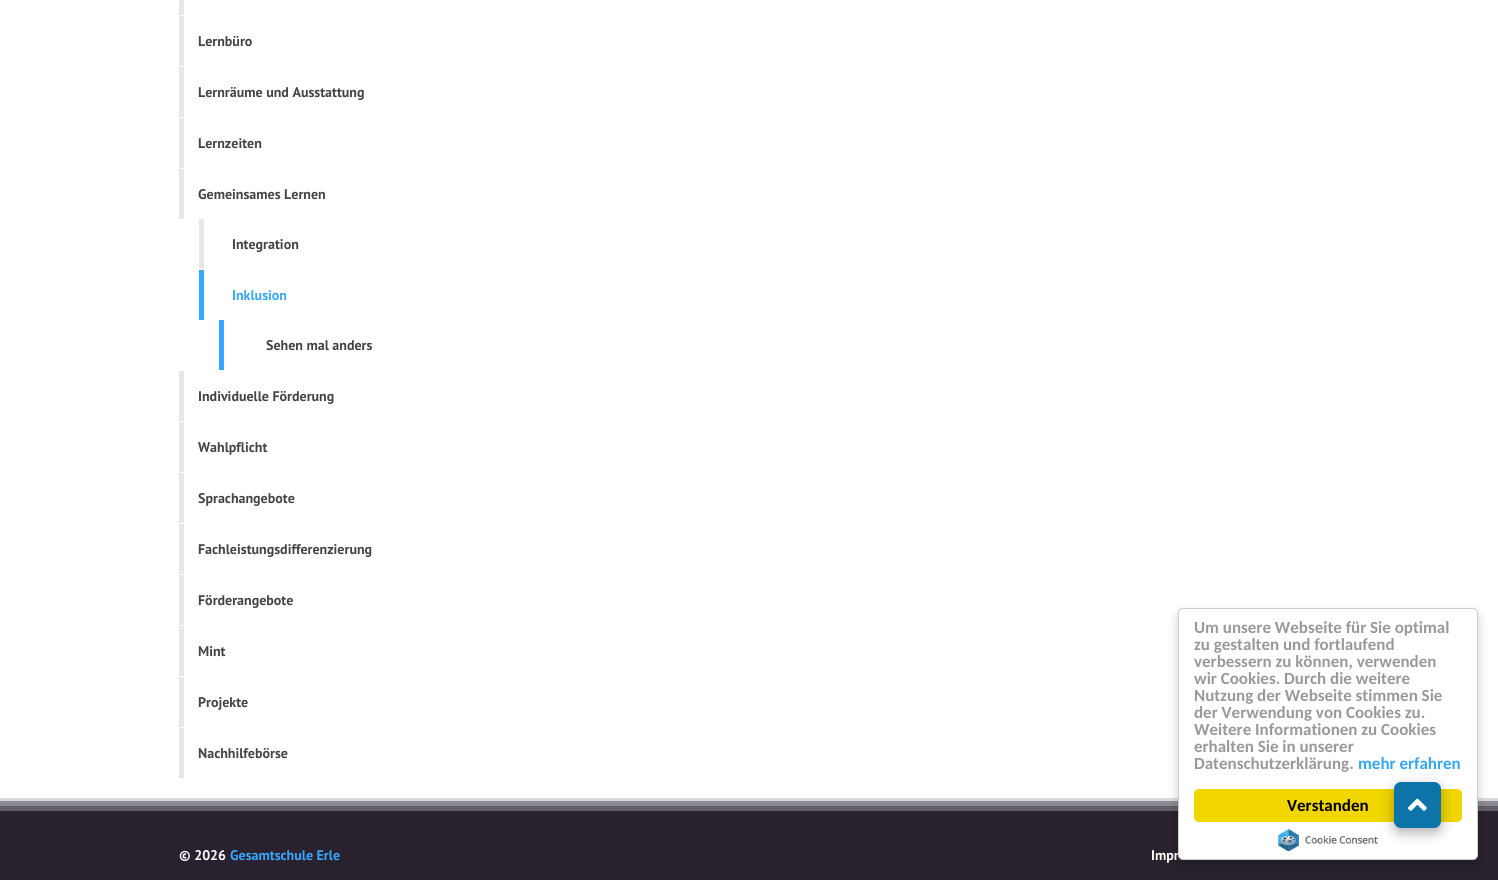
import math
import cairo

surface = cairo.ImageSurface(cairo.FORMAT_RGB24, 1498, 880)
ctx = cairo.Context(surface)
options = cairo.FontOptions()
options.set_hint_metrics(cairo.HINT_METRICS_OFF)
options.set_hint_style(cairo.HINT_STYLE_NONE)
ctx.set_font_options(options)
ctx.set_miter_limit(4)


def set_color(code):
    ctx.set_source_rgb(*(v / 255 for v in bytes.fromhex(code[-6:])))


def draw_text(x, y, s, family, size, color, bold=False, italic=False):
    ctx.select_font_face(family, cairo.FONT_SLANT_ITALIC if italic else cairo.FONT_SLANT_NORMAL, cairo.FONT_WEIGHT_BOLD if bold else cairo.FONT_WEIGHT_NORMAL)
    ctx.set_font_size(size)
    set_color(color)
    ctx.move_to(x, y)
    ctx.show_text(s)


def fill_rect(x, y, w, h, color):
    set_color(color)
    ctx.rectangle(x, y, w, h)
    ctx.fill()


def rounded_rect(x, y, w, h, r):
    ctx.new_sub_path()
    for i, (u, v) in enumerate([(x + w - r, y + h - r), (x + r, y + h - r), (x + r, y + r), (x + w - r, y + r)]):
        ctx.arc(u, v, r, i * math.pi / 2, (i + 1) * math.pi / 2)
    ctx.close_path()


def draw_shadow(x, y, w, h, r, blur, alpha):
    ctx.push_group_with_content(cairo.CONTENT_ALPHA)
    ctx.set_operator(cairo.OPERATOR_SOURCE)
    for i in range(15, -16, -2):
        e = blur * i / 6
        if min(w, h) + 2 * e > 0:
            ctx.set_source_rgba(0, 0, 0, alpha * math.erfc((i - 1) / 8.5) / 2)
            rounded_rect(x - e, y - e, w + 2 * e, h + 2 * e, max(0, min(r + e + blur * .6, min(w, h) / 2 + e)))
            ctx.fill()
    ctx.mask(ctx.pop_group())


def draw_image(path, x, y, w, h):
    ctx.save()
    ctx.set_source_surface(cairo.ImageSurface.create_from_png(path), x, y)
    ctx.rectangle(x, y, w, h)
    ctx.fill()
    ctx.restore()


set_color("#ffffff")
ctx.paint()
fill_rect(179, 0, 5, 15, "#e7e7e7")
fill_rect(179, 16, 5, 50, "#e7e7e7")
draw_text(198, 46, "Lernbüro", "PT Sans", 14, "#444444", bold=True)
fill_rect(179, 67, 5, 50, "#e7e7e7")
draw_text(198, 97, "Lernräume und Ausstattung", "PT Sans", 14, "#444444", bold=True)
fill_rect(179, 118, 5, 50, "#e7e7e7")
draw_text(198, 148, "Lernzeiten", "PT Sans", 14, "#444444", bold=True)
fill_rect(179, 169, 5, 50, "#e7e7e7")
draw_text(198, 199, "Gemeinsames Lernen", "PT Sans", 14, "#444444", bold=True)
fill_rect(199, 219, 5, 50, "#e7e7e7")
draw_text(232, 249, "Integration", "PT Sans", 14, "#444444", bold=True)
fill_rect(199, 270, 5, 50, "#35a7ff")
draw_text(232, 300, "Inklusion", "PT Sans", 14, "#35a7ff", bold=True)
fill_rect(219, 320, 5, 50, "#35a7ff")
draw_text(266, 350, "Sehen mal anders", "PT Sans", 14, "#444444", bold=True)
fill_rect(179, 371, 5, 50, "#e7e7e7")
draw_text(198, 401, "Individuelle Förderung", "PT Sans", 14, "#444444", bold=True)
fill_rect(179, 422, 5, 50, "#e7e7e7")
draw_text(198, 452, "Wahlpflicht", "PT Sans", 14, "#444444", bold=True)
fill_rect(179, 473, 5, 50, "#e7e7e7")
draw_text(198, 503, "Sprachangebote", "PT Sans", 14, "#444444", bold=True)
fill_rect(179, 524, 5, 50, "#e7e7e7")
draw_text(198, 554, "Fachleistungsdifferenzierung", "PT Sans", 14, "#444444", bold=True)
fill_rect(179, 575, 5, 50, "#e7e7e7")
draw_text(198, 605, "Förderangebote", "PT Sans", 14, "#444444", bold=True)
fill_rect(179, 626, 5, 50, "#e7e7e7")
draw_text(198, 656, "Mint", "PT Sans", 14, "#444444", bold=True)
fill_rect(179, 677, 5, 50, "#e7e7e7")
draw_text(198, 707, "Projekte", "PT Sans", 14, "#444444", bold=True)
fill_rect(179, 728, 5, 50, "#e7e7e7")
draw_text(198, 758, "Nachhilfebörse", "PT Sans", 14, "#444444", bold=True)
fill_rect(0, 798, 1498, 82, "#29222e")
draw_image("assets/img1.png", 0, 798, 1498, 13)
draw_text(179, 860, "© 2026", "PT Sans", 14, "#ffffff", bold=True)
draw_text(230, 860, "Gesamtschule Erle", "PT Sans", 14, "#35a7ff", bold=True)
draw_text(1151, 860, "Impr", "PT Sans", 14, "#ffffff", bold=True)
set_color("#000000")
draw_shadow(1178, 613, 300, 252, 5, 5, 0.2)
set_color("#ffffff")
rounded_rect(1178.5, 608.5, 299, 251, 4.5)
ctx.fill_preserve()
set_color("#cccccc")
ctx.set_line_width(1)
ctx.stroke()
set_color("#f1d600")
rounded_rect(1194, 789, 268, 33, 5)
ctx.fill()
draw_image("assets/img3.png", 1278, 829, 100, 22)
set_color("#000000")
draw_shadow(1394, 786, 47, 46, 7, 7.5, 0.15)
draw_shadow(1394, 787, 47, 46, 7, 5.5, 0.18)
set_color("#0c74a8")
rounded_rect(1394, 782, 47, 46, 7)
ctx.fill()
draw_image("assets/img2.png", 1408, 798, 19, 13)
draw_text(1194, 633, "Um unsere Webseite für Sie optimal", "Carlito", 17, "#999999", bold=True)
draw_text(1194, 650, "zu gestalten und fortlaufend", "Carlito", 17, "#999999", bold=True)
draw_text(1194, 667, "verbessern zu können, verwenden", "Carlito", 17, "#999999", bold=True)
draw_text(1194, 684, "wir Cookies. Durch die weitere", "Carlito", 17, "#999999", bold=True)
draw_text(1194, 701, "Nutzung der Webseite stimmen Sie", "Carlito", 17, "#999999", bold=True)
draw_text(1194, 718, "der Verwendung von Cookies zu.", "Carlito", 17, "#999999", bold=True)
draw_text(1194, 735, "Weitere Informationen zu Cookies", "Carlito", 17, "#999999", bold=True)
draw_text(1194, 752, "erhalten Sie in unserer", "Carlito", 17, "#999999", bold=True)
draw_text(1194, 769, "Datenschutzerklärung.", "Carlito", 17, "#999999", bold=True)
draw_text(1358, 769, "mehr erfahren", "Carlito", 17, "#31a8f0", bold=True)
draw_text(1287, 811, "Verstanden", "Carlito", 17, "#000000", bold=True)
surface.write_to_png("output.png")
